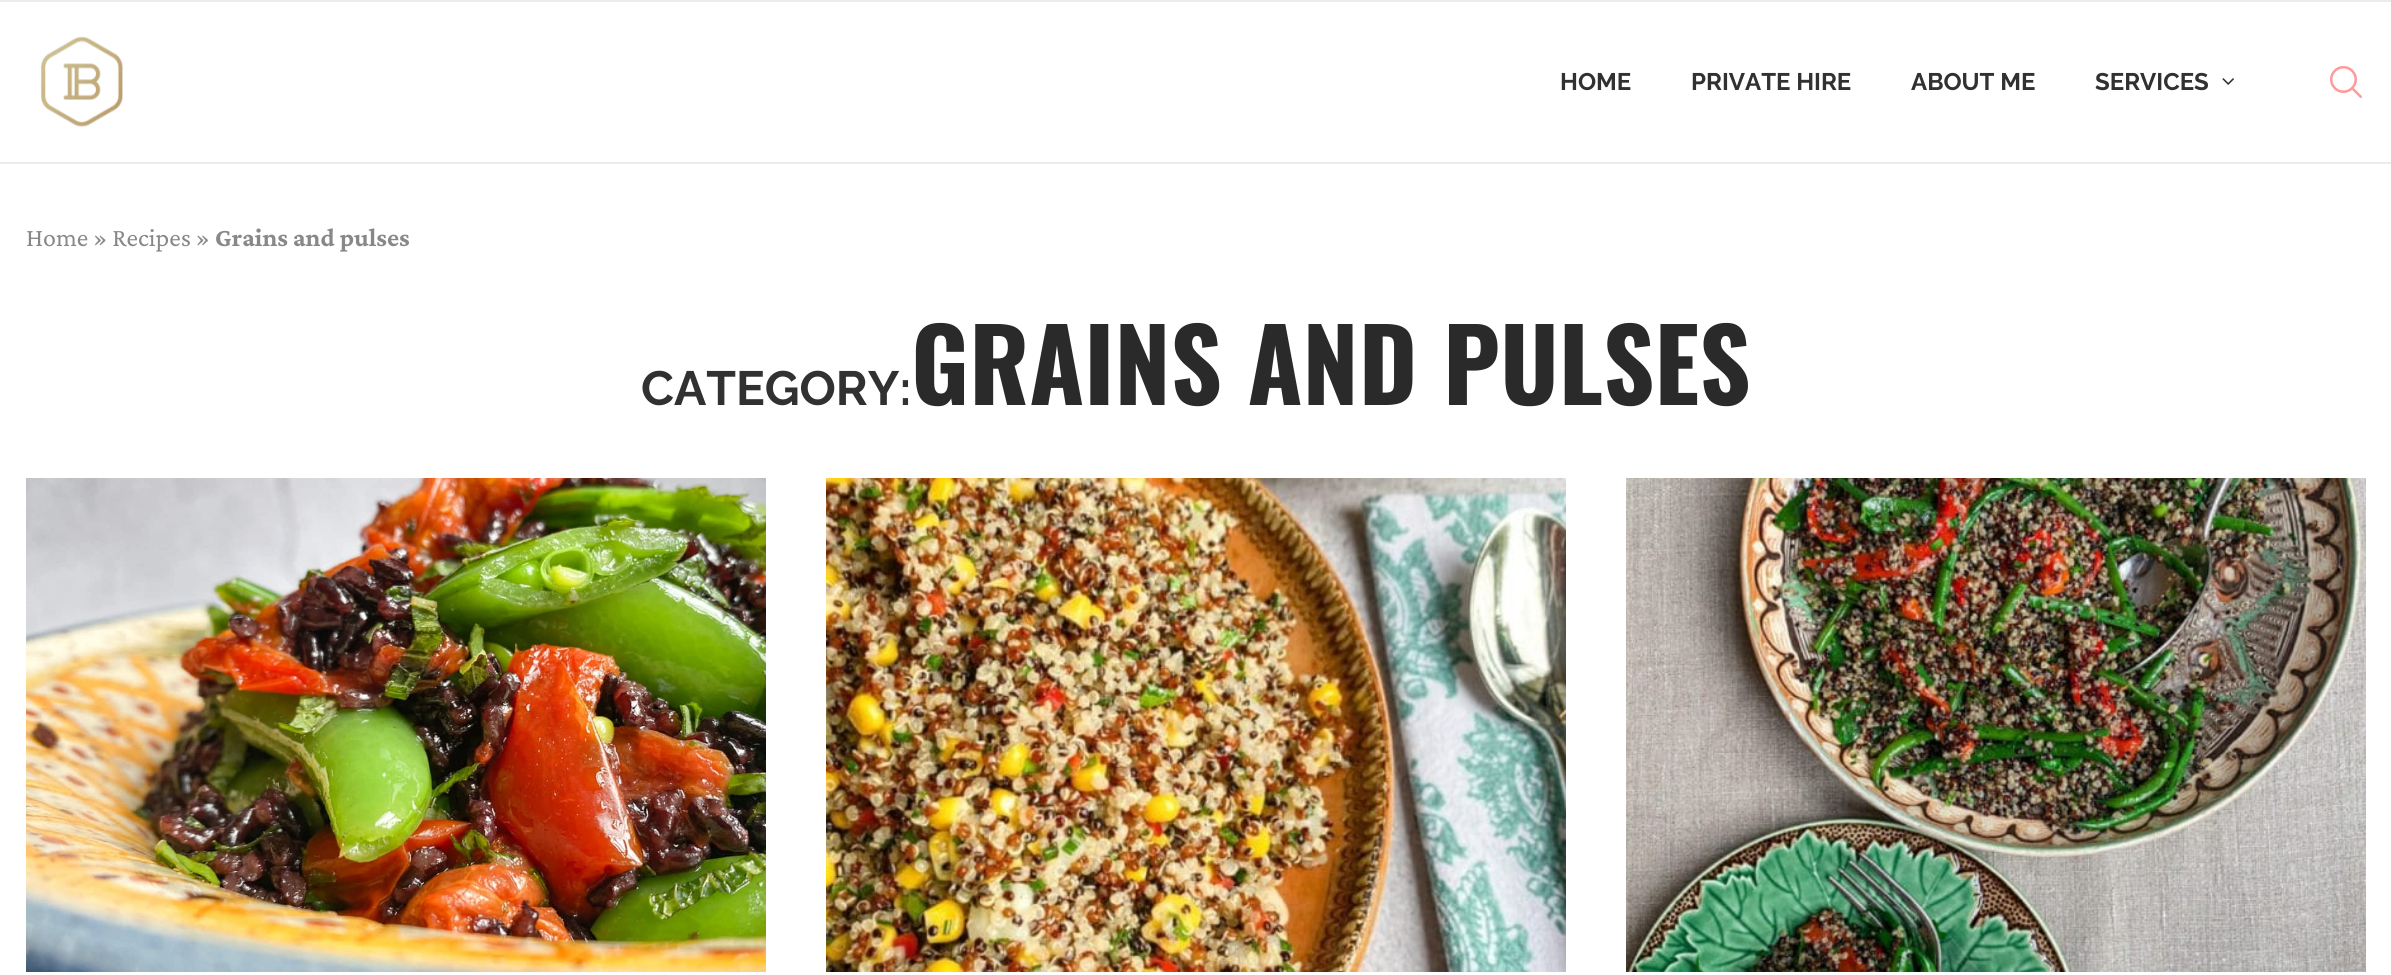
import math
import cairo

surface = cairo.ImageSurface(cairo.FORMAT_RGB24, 2391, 975)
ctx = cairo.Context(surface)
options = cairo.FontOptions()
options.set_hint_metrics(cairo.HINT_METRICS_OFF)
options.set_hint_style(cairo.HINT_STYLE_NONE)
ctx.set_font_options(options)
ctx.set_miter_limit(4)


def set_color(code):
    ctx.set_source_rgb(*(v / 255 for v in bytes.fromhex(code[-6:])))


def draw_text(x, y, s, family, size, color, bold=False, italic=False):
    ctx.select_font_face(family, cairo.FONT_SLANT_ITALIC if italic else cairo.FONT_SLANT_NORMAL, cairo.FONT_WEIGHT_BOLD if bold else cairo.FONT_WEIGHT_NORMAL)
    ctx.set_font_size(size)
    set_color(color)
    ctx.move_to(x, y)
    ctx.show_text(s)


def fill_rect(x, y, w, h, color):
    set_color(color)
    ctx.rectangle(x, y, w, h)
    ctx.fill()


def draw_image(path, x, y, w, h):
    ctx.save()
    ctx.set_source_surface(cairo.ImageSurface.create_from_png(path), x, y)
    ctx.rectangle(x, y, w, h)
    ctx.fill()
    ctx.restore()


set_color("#ffffff")
ctx.paint()
fill_rect(0, 0, 2391, 2, "#ececec")
fill_rect(0, 162, 2391, 2, "#ececec")
draw_image("assets/img1.png", 40, 36, 83, 91)
draw_text(1560, 90, "HOME", "Raleway", 24, "#313131", bold=True)
draw_text(1691, 90, "PRIVATE HIRE", "Raleway", 24, "#313131", bold=True)
draw_text(1911, 90, "ABOUT ME", "Raleway", 24, "#313131", bold=True)
draw_text(2095, 90, "SERVICES", "Raleway", 24, "#313131", bold=True)
draw_image("assets/img2.png", 2222, 78, 12, 7)
draw_image("assets/img3.png", 2330, 66, 32, 32)
draw_text(26, 246, "Home » Recipes »", "Crimson Pro", 26, "#888888")
draw_text(215, 246, "Grains and pulses", "Crimson Pro", 26, "#888888", bold=True)
draw_text(641, 405, "CATEGORY:", "Raleway", 48, "#313131", bold=True)
draw_text(911, 405, "GRAINS AND PULSES", "Oswald", 100, "#2a2a2a", bold=True)
draw_image("assets/img4.png", 26, 478, 740, 494)
draw_image("assets/img5.png", 826, 478, 740, 494)
draw_image("assets/img6.png", 1626, 478, 740, 494)
surface.write_to_png("output.png")
